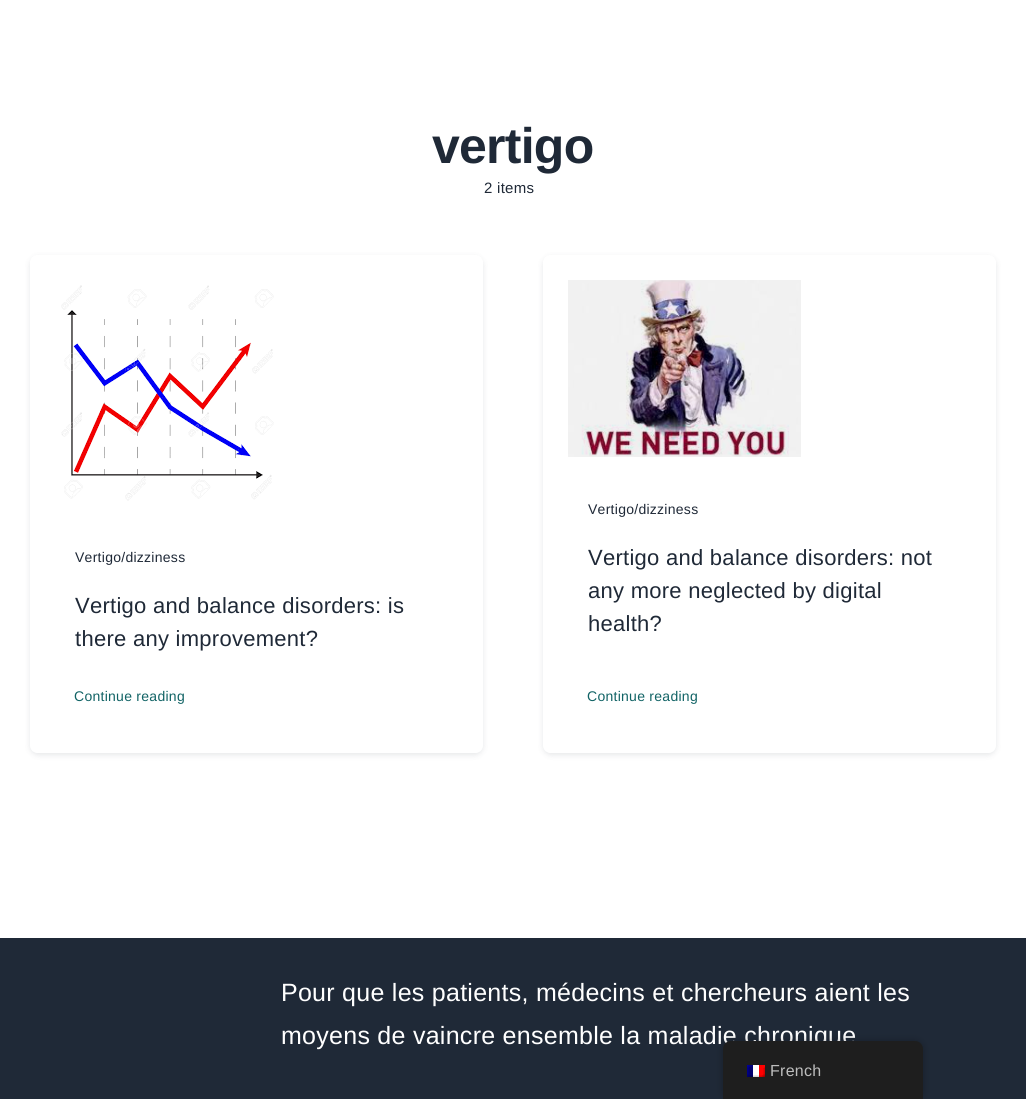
import math
import cairo

surface = cairo.ImageSurface(cairo.FORMAT_RGB24, 1026, 1099)
ctx = cairo.Context(surface)
options = cairo.FontOptions()
options.set_hint_metrics(cairo.HINT_METRICS_OFF)
options.set_hint_style(cairo.HINT_STYLE_NONE)
ctx.set_font_options(options)
ctx.set_miter_limit(4)


def set_color(code):
    ctx.set_source_rgb(*(v / 255 for v in bytes.fromhex(code[-6:])))


def draw_spaced(x, y, s, letter, word):
    ctx.move_to(x, y)
    for ch in s:
        ctx.show_text(ch)
        ctx.rel_move_to(letter + word * (ch == ' '), 0)


def fill_rect(x, y, w, h, color):
    set_color(color)
    ctx.rectangle(x, y, w, h)
    ctx.fill()


def rounded_rect(x, y, w, h, r):
    ctx.new_sub_path()
    for i, (u, v) in enumerate([(x + w - r, y + h - r), (x + r, y + h - r), (x + r, y + r), (x + w - r, y + r)]):
        ctx.arc(u, v, r, i * math.pi / 2, (i + 1) * math.pi / 2)
    ctx.close_path()


def draw_shadow(x, y, w, h, r, blur, alpha):
    ctx.push_group_with_content(cairo.CONTENT_ALPHA)
    ctx.set_operator(cairo.OPERATOR_SOURCE)
    for i in range(15, -16, -2):
        e = blur * i / 6
        if min(w, h) + 2 * e > 0:
            ctx.set_source_rgba(0, 0, 0, alpha * math.erfc((i - 1) / 8.5) / 2)
            rounded_rect(x - e, y - e, w + 2 * e, h + 2 * e, max(0, min(r + e + blur * .6, min(w, h) / 2 + e)))
            ctx.fill()
    ctx.mask(ctx.pop_group())


def draw_image(path, x, y, w, h):
    ctx.save()
    ctx.set_source_surface(cairo.ImageSurface.create_from_png(path), x, y)
    ctx.rectangle(x, y, w, h)
    ctx.fill()
    ctx.restore()


set_color("#ffffff")
ctx.paint()
ctx.select_font_face("Liberation Sans", cairo.FONT_SLANT_NORMAL, cairo.FONT_WEIGHT_BOLD)
ctx.set_font_size(50)
set_color("#1f2937")
draw_spaced(432, 163, "vertigo", -0.75, 0)
ctx.select_font_face("Liberation Sans")
ctx.set_font_size(15)
draw_spaced(484, 193, "2 items", 0.27, 0)
ctx.save()
ctx.set_fill_rule(cairo.FILL_RULE_EVEN_ODD)
ctx.new_path()
ctx.move_to(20, 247)
ctx.line_to(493, 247)
ctx.line_to(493, 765)
ctx.line_to(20, 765)
ctx.close_path()
ctx.move_to(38, 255)
ctx.line_to(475, 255)
ctx.curve_to(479.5, 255, 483, 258.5, 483, 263)
ctx.line_to(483, 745)
ctx.curve_to(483, 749.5, 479.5, 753, 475, 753)
ctx.line_to(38, 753)
ctx.curve_to(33.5, 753, 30, 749.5, 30, 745)
ctx.line_to(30, 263)
ctx.curve_to(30, 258.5, 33.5, 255, 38, 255)
ctx.close_path()
ctx.clip()
set_color("#1f2937")
draw_shadow(30, 257, 453, 498, 8, 3, 0.11)
ctx.restore()
draw_image("assets/img1.png", 61, 285, 213, 216)
ctx.set_font_size(14)
draw_spaced(75, 562, "Vertigo/dizziness", 0.27, 0)
ctx.set_font_size(22)
draw_spaced(75, 613, "Vertigo and balance disorders: is", 0.27, 0)
draw_spaced(75, 646, "there any improvement?", 0.27, 0)
ctx.set_font_size(14)
set_color("#116365")
draw_spaced(74, 701, "Continue reading", 0.27, 0)
ctx.save()
ctx.set_fill_rule(cairo.FILL_RULE_EVEN_ODD)
ctx.new_path()
ctx.move_to(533, 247)
ctx.line_to(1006, 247)
ctx.line_to(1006, 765)
ctx.line_to(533, 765)
ctx.close_path()
ctx.move_to(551, 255)
ctx.line_to(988, 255)
ctx.curve_to(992.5, 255, 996, 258.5, 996, 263)
ctx.line_to(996, 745)
ctx.curve_to(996, 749.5, 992.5, 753, 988, 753)
ctx.line_to(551, 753)
ctx.curve_to(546.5, 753, 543, 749.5, 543, 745)
ctx.line_to(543, 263)
ctx.curve_to(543, 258.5, 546.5, 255, 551, 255)
ctx.close_path()
ctx.clip()
set_color("#1f2937")
draw_shadow(543, 257, 453, 498, 8, 3, 0.11)
ctx.restore()
draw_image("assets/img2.png", 568, 280, 233, 177)
set_color("#1f2937")
draw_spaced(588, 514, "Vertigo/dizziness", 0.27, 0)
ctx.set_font_size(22)
draw_spaced(588, 565, "Vertigo and balance disorders: not", 0.27, 0)
draw_spaced(588, 598, "any more neglected by digital", 0.27, 0)
draw_spaced(588, 631, "health?", 0.27, 0)
ctx.set_font_size(14)
set_color("#116365")
draw_spaced(587, 701, "Continue reading", 0.27, 0)
fill_rect(0, 938, 1026, 161, "#1f2937")
ctx.set_font_size(25)
set_color("#ffffff")
draw_spaced(281, 1001, "Pour que les patients, médecins et chercheurs aient les", 0.27, 0)
draw_spaced(281, 1044, "moyens de vaincre ensemble la maladie chronique", 0.27, 0)
set_color("#000000")
draw_shadow(723, 1041, 200, 58, 8, 4, 0.25)
set_color("#1e1e1e")
ctx.new_path()
ctx.move_to(731, 1041)
ctx.line_to(915, 1041)
ctx.curve_to(919.5, 1041, 923, 1044.5, 923, 1049)
ctx.line_to(923, 1099)
ctx.line_to(723, 1099)
ctx.line_to(723, 1049)
ctx.curve_to(723, 1044.5, 726.5, 1041, 731, 1041)
ctx.close_path()
ctx.fill()
draw_image("assets/img3.png", 747, 1065, 18, 12)
ctx.set_font_size(16)
set_color("#bdbdbd")
draw_spaced(770, 1076, "French", 0.27, 0)
surface.write_to_png("output.png")
